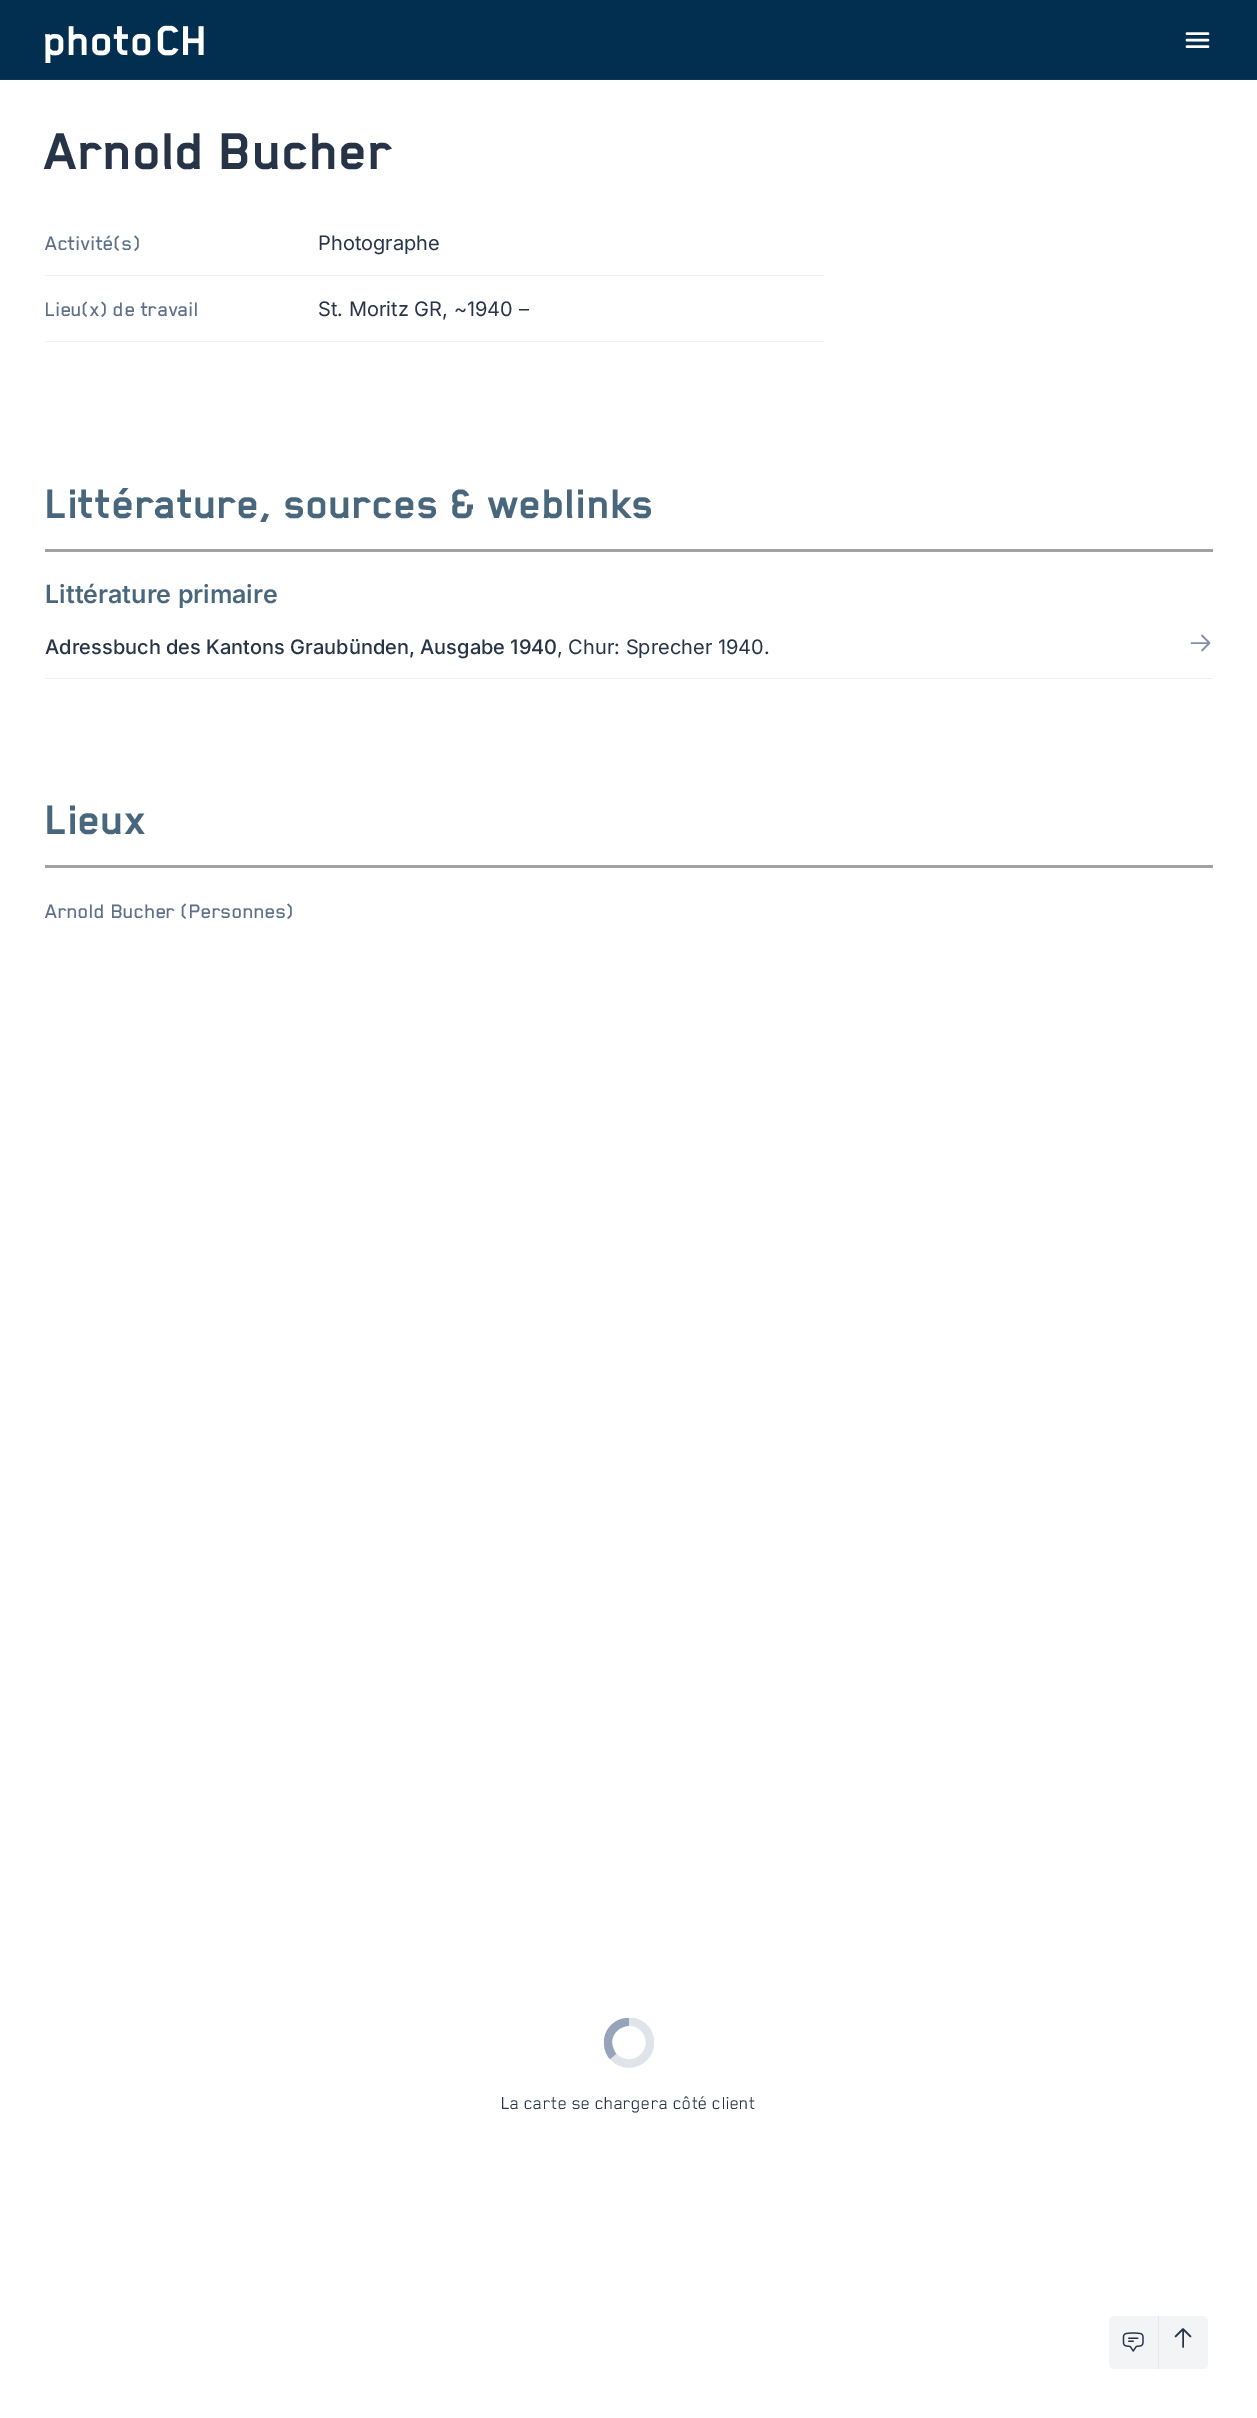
%!PS-Adobe-3.0
%%BoundingBox: 0 0 1257 2418
%%LanguageLevel: 3
%%Pages: 1
%%EndComments
%%BeginProlog
/setink { dup -16 bitshift 255 div exch dup -8 bitshift 255 and 255 div exch 255 and 255 div setrgbcolor } def
/usefont { [ exch dup neg 0 0 3 -1 roll 0 0 ] selectfont } def
/setalpha { dup .setfillconstantalpha .setstrokeconstantalpha } def
/disc { newpath 0 360 arc closepath } def
/rrect { 5 dict begin { /r /h /w /y /x } { exch def } forall
  x r add y moveto x w add y 2 copy h add r arct x w add y h add x 1 index r arct
  x y h add x y r arct x y 2 copy exch w add exch r arct closepath end } def
/drawimage { 5 dict begin { /h /w /y /x /name } { exch def } forall
  gsave x y translate w h scale
  w h 8 [w 0 0 h 0 0] name (r) file false 3 colorimage grestore end } def
%%EndProlog
%%BeginSetup
<< /PageSize [1257 2418] /PageUsesTransparency true >> setpagedevice
%%EndSetup
%%Page: 1 1
0 .pushpdf14devicefilter
0 2418 translate 1 -1 scale
4 setmiterlimit
16#FFFFFF setink
0 0 1257 2418 rectfill
16#022E4F setink
0 0 1257 79 rectfill
16#0F3858 setink
0 79 1257 1 rectfill
(img1.raw) 45 25 159 38 drawimage
16#FFFFFF setink
2.5 setlinewidth
1 setlinecap
1 setlinejoin
1187 33.5 moveto 1208 33.5 lineto 1187 40 moveto 1208 40 lineto 1187 46.5 moveto 1208 46.5 lineto stroke
/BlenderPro-Bold 60 usefont
16#273448 setink
45 169 moveto (Arnold Bucher) show
16#EEF2F6 setink
45 341 779 1 rectfill
/BlenderPro-Medium 22.5 usefont
16#5E6F8A setink
45 250 moveto (Activité\(s\)) show
/Inter-Regular 20 usefont
16#273448 setink
318 250 moveto (Photographe) show
16#EEF2F6 setink
45 275 779 1 rectfill
/BlenderPro-Medium 22.5 usefont
16#5E6F8A setink
45 316 moveto (Lieu\(x\) de travail) show
/Inter-Regular 20 usefont
16#273448 setink
318 316 moveto (St. Moritz GR, ~1940 –) show
/BlenderPro-Bold 47.5 usefont
16#49677C setink
45 518 moveto (Littérature, sources & weblinks) show
16#A1A1A1 setink
45 549 1168 3 rectfill
/Inter-SemiBold 25 usefont
16#49677C setink
45 603 moveto (Littérature primaire) show
16#EEF2F6 setink
45 678 1168 1 rectfill
/Inter-Medium 20 usefont
16#273448 setink
45 654 moveto (Adressbuch des Kantons Graubünden, Ausgabe 1940) show
/Inter-Regular 20 usefont
557 654 moveto (, Chur: Sprecher 1940.) show
16#7D8FAA setink
1.5 setlinewidth
1202 635.5 moveto 1209.5 643 lineto 1209.5 643 moveto 1202 650.5 lineto 1209.5 643 moveto 1191.5 643 lineto stroke
/BlenderPro-Bold 47.5 usefont
16#49677C setink
45 834 moveto (Lieux) show
16#A1A1A1 setink
45 865 1168 3 rectfill
/BlenderPro-Medium 22.5 usefont
16#5E6F8A setink
45 918 moveto (Arnold Bucher \(Personnes\)) show
gsave
604 2018 50 50 rectclip
16#DFE3EA setink
8.3 setlinewidth
0 setlinecap
0 setlinejoin
629 2042.5 21 disc stroke
grestore
0.75 setalpha
16#7D8FAA setink
612 2042 moveto 612 2033 620 2026 629 2026 curveto 629 2018 lineto 615 2018 604 2029 604 2042 curveto closepath 616 2054 moveto 614 2050 612 2047 612 2042 curveto 604 2042 lineto 604 2049 606 2055 610 2059 curveto closepath fill
/BlenderPro-Regular 20 usefont
1 setalpha
16#273448 setink
501 2109 moveto (La carte se chargera côté client) show
16#F3F4F6 setink
1109 2316 99 53 5 rrect fill
(img2.raw) 1122 2332 22 20 drawimage
16#E5E7EB setink
1158 2316 1 53 rectfill
16#273448 setink
1175.5 2336.5 moveto 1183 2329 lineto 1183 2329 moveto 1190.5 2336.5 lineto 1183 2329 moveto 1183 2347 lineto stroke
.poppdf14devicefilter showpage
%%EOF
